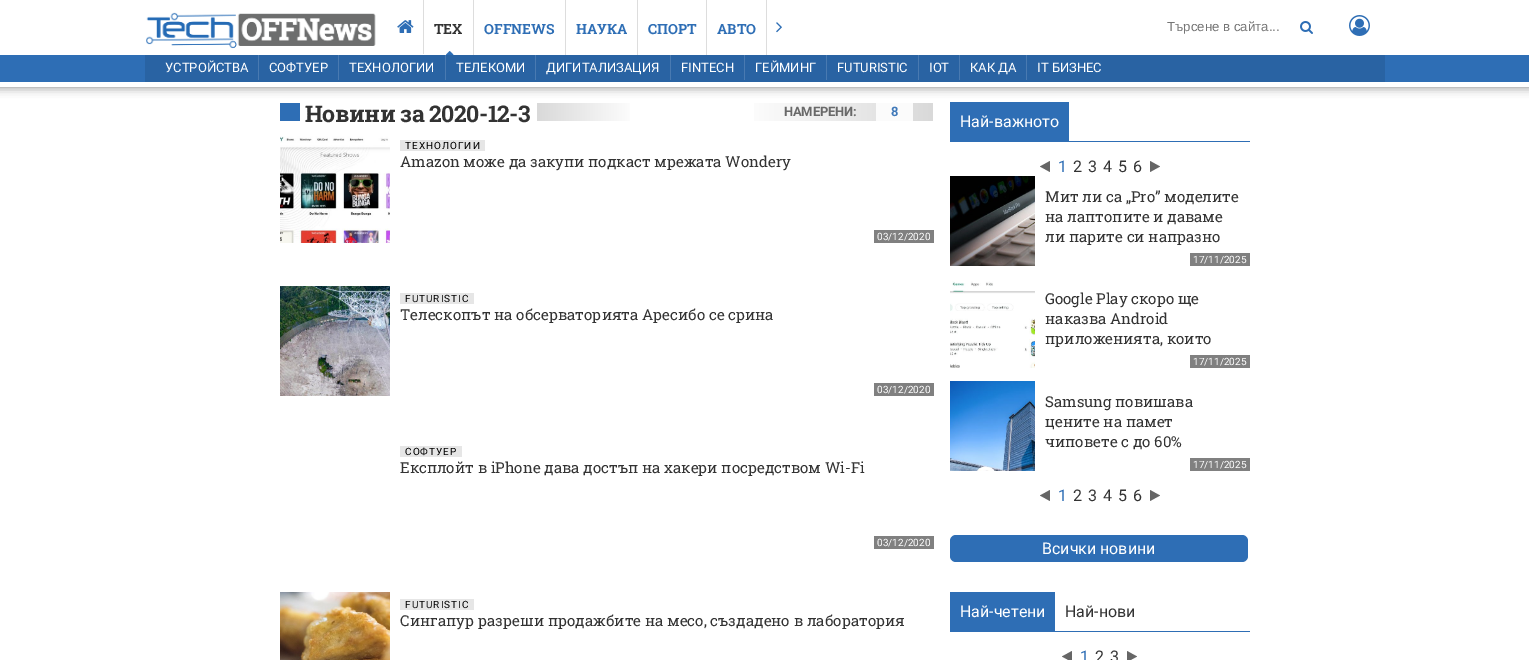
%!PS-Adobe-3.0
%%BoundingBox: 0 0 1529 660
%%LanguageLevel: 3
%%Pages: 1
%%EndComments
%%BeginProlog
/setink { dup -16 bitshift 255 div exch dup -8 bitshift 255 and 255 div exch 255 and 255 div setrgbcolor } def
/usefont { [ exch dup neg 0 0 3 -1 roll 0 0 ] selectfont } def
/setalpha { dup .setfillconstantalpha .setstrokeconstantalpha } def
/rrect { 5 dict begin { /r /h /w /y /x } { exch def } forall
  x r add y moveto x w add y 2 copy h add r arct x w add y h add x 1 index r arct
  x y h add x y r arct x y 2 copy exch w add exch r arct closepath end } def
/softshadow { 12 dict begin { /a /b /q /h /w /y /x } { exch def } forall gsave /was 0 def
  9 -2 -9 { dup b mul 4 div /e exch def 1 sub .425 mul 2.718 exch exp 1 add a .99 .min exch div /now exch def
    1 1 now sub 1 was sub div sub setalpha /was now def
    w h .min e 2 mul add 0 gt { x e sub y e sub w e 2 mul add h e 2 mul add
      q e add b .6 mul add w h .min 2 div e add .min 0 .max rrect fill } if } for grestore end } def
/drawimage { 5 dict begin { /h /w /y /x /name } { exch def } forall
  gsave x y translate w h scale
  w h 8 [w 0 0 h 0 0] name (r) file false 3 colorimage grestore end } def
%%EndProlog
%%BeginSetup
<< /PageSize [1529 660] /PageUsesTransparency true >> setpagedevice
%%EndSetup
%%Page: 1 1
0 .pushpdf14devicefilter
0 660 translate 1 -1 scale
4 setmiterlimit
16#FFFFFF setink
0 0 1529 660 rectfill
(img1.raw) 146 12 230 37 drawimage
16#2E6EB5 setink
950 102 119 39 rectfill
16#000000 setink
-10 67 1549 20 0 5 0.5 softshadow
16#DDDDDD setink
423 0 1 54 rectfill
(img2.raw) 397 20 17 13 drawimage
473 0 1 55 rectfill
/RobotoSlab-Bold 14 usefont
16#333333 setink
434 34 moveto (ТЕХ) show
(img3.raw) 446 51 8 4 drawimage
16#DDDDDD setink
565 0 1 55 rectfill
16#2E6EB5 setink
484 34 moveto (OFFNEWS) show
16#DDDDDD setink
637 0 1 55 rectfill
16#2E6EB5 setink
576 34 moveto (НАУКА) show
16#DDDDDD setink
706 0 1 55 rectfill
16#2E6EB5 setink
648 34 moveto (СПОРТ) show
16#DDDDDD setink
766 0 1 55 rectfill
16#2E6EB5 setink
717 34 moveto (АВТО) show
(img4.raw) 776 22 6 11 drawimage
/LiberationSans-Regular 13.25 usefont
16#757575 setink
1167 31 moveto (Търсене в сайта...) show
(img5.raw) 1300 21 13 13 drawimage
(img6.raw) 1349 15 21 21 drawimage
[
    [0 55 1529 27 16#2E6EB5]
    [0 82 1529 5 16#FFFFFF]
    [145 55 1240 27 16#2963A3]
    [258 55 1 25 16#497AB1]
] { aload pop setink rectfill } forall
/Roboto-Regular 13 usefont
16#FFFFFF setink
165 72 moveto (УСТРОЙСТВА) show
16#497AB1 setink
338 55 1 25 rectfill
16#FFFFFF setink
269 72 moveto (СОФТУЕР) show
16#497AB1 setink
445 55 1 25 rectfill
16#FFFFFF setink
349 72 moveto (ТЕХНОЛОГИИ) show
16#497AB1 setink
535 55 1 25 rectfill
16#FFFFFF setink
456 72 moveto (ТЕЛЕКОМИ) show
16#497AB1 setink
670 55 1 25 rectfill
16#FFFFFF setink
546 72 moveto (ДИГИТАЛИЗАЦИЯ) show
16#497AB1 setink
744 55 1 25 rectfill
16#FFFFFF setink
681 72 moveto (FINTECH) show
16#497AB1 setink
826 55 1 25 rectfill
16#FFFFFF setink
755 72 moveto (ГЕЙМИНГ) show
16#497AB1 setink
918 55 1 25 rectfill
16#FFFFFF setink
837 72 moveto (FUTURISTIC) show
16#497AB1 setink
959 55 1 25 rectfill
16#FFFFFF setink
929 72 moveto (IOT) show
16#497AB1 setink
1026 55 1 25 rectfill
16#FFFFFF setink
970 72 moveto (КАК ДА) show
1037 72 moveto (IT БИЗНЕС) show
16#2E6EB5 setink
280 103 20 18 rectfill
/RobotoSlab-Bold 23 usefont
16#333333 setink
305 122 moveto -0.5 0 (Новини за 2020-12-3) ashow
gsave 537 103 moveto 630 103 lineto 630 121 lineto 537 121 lineto closepath clip newpath
<< /ShadingType 2 /ColorSpace /DeviceRGB /Coords [537 112 637 112] /Extend [true true] /Function << /FunctionType 2 /Domain [0 1] /C0 [0.851 0.851 0.851] /C1 [1 1 1] /N 1 >> >> shfill grestore
gsave 754 103 moveto 933 103 lineto 933 121 lineto 754 121 lineto closepath clip newpath
<< /ShadingType 2 /ColorSpace /DeviceRGB /Coords [933 112 741 112] /Extend [true true] /Function << /FunctionType 2 /Domain [0 1] /C0 [0.851 0.851 0.851] /C1 [1 1 1] /N 1 >> >> shfill grestore
gsave 876 103 moveto 913 103 lineto 913 121 lineto 876 121 lineto closepath clip newpath
<< /ShadingType 2 /ColorSpace /DeviceRGB /Coords [933 112 741 112] /Extend [true true] /Function << /FunctionType 2 /Domain [0 1] /C0 [0.984 0.984 0.984] /C1 [1 1 1] /N 1 >> >> shfill grestore
/Roboto-Bold 13 usefont
16#696969 setink
784 116 moveto -0.25 0 (НАМЕРЕНИ:) ashow
16#4079B9 setink
891 116 moveto -0.25 0 (8) ashow
(img7.raw) 280 136 110 107 drawimage
16#E6E6E6 setink
400 140 85 11 rectfill
/Roboto-Regular 10 usefont
16#000000 setink
405 149 moveto 1 0 (ТЕХНОЛОГИИ) ashow
/RobotoSlab-Regular 15 usefont
16#333333 setink
400 167 moveto (Amazon може да закупи подкаст мрежата Wondery) show
16#808080 setink
874 230 60 13 rectfill
/Roboto-Regular 10 usefont
16#FFFFFF setink
877 240 moveto (03/12/2020) show
(img8.raw) 280 286 110 110 drawimage
16#E6E6E6 setink
400 293 74 11 rectfill
16#000000 setink
405 302 moveto 1 0 (FUTURISTIC) ashow
/RobotoSlab-Regular 15 usefont
16#333333 setink
400 320 moveto (Телескопът на обсерваторията Аресибо се срина) show
16#808080 setink
874 383 60 13 rectfill
/Roboto-Regular 10 usefont
16#FFFFFF setink
877 393 moveto (03/12/2020) show
16#E6E6E6 setink
400 446 62 11 rectfill
16#000000 setink
405 455 moveto 1 0 (СОФТУЕР) ashow
/RobotoSlab-Regular 15 usefont
16#333333 setink
400 473 moveto (Експлойт в iPhone дава достъп на хакери посредством Wi-Fi) show
16#808080 setink
874 536 60 13 rectfill
/Roboto-Regular 10 usefont
16#FFFFFF setink
877 546 moveto (03/12/2020) show
(img9.raw) 280 592 110 68 drawimage
16#E6E6E6 setink
400 599 74 11 rectfill
16#000000 setink
405 608 moveto 1 0 (FUTURISTIC) ashow
/RobotoSlab-Regular 15 usefont
16#333333 setink
400 626 moveto (Сингапур разреши продажбите на месо, създадено в лаборатория) show
16#2E6EB5 setink
950 141 300 1 rectfill
/Roboto-Regular 16 usefont
16#FFFFFF setink
960 127 moveto (Най-важното) show
16#666666 setink
1050 166.5 moveto 1050 172 lineto 1040 166.5 lineto 1050 161 lineto closepath fill
16#2E6EB5 setink
1058 172 moveto (1) show
16#333333 setink
[
    [(2) 1073 172]
    [(3) 1088 172]
    [(4) 1103 172]
    [(5) 1118 172]
    [(6) 1133 172]
] { aload pop moveto show } forall
16#666666 setink
1150 166.5 moveto 1150 161 lineto 1160 166.5 lineto 1150 172 lineto closepath fill
(img10.raw) 950 176 85 90 drawimage
/RobotoSlab-Regular 15 usefont
16#333333 setink
[
    [(Мит ли са „Pro” моделите) 1045 202]
    [(на лаптопите и даваме) 1045 222]
    [(ли парите си напразно) 1045 242]
] { aload pop moveto show } forall
16#808080 setink
1190 253 60 13 rectfill
/Roboto-Regular 10 usefont
16#FFFFFF setink
1193 263 moveto (17/11/2025) show
(img11.raw) 950 281 85 87 drawimage
/RobotoSlab-Regular 15 usefont
16#333333 setink
[
    [(Google Play скоро ще) 1045 304]
    [(наказва Android) 1045 324]
    [(приложенията, които) 1045 344]
] { aload pop moveto show } forall
16#808080 setink
1190 355 60 13 rectfill
/Roboto-Regular 10 usefont
16#FFFFFF setink
1193 365 moveto (17/11/2025) show
(img12.raw) 950 381 85 90 drawimage
/RobotoSlab-Regular 15 usefont
16#333333 setink
[
    [(Samsung повишава) 1045 407]
    [(цените на памет) 1045 427]
    [(чиповете с до 60%) 1045 447]
] { aload pop moveto show } forall
16#808080 setink
1190 458 60 13 rectfill
/Roboto-Regular 10 usefont
16#FFFFFF setink
1193 468 moveto (17/11/2025) show
16#666666 setink
1050 495.5 moveto 1050 501 lineto 1040 495.5 lineto 1050 490 lineto closepath fill
/Roboto-Regular 16 usefont
16#2E6EB5 setink
1058 501 moveto (1) show
16#333333 setink
[
    [(2) 1073 501]
    [(3) 1088 501]
    [(4) 1103 501]
    [(5) 1118 501]
    [(6) 1133 501]
] { aload pop moveto show } forall
16#666666 setink
1150 495.5 moveto 1150 490 lineto 1160 495.5 lineto 1150 501 lineto closepath fill
16#2E6EB5 setink
950 535 298 27 6 rrect fill
16#FFFFFF setink
1042 554 moveto (Всички новини) show
16#2E6EB5 setink
950 631 300 1 rectfill
950 592 105 39 rectfill
16#FFFFFF setink
960 617 moveto (Най-четени) show
16#333333 setink
1065 617 moveto (Най-нови) show
16#666666 setink
1072 656.5 moveto 1072 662 lineto 1062 656.5 lineto 1072 651 lineto closepath fill
16#2E6EB5 setink
1080 662 moveto (1) show
16#333333 setink
1095 662 moveto (2) show
1110 662 moveto (3) show
16#666666 setink
1127 656.5 moveto 1127 651 lineto 1137 656.5 lineto 1127 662 lineto closepath fill
.poppdf14devicefilter showpage
%%EOF
